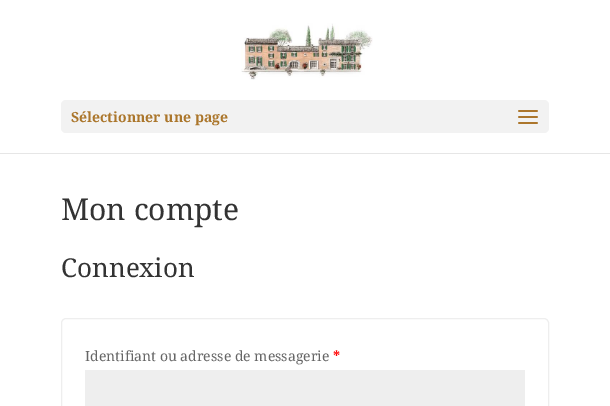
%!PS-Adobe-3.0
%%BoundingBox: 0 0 610 406
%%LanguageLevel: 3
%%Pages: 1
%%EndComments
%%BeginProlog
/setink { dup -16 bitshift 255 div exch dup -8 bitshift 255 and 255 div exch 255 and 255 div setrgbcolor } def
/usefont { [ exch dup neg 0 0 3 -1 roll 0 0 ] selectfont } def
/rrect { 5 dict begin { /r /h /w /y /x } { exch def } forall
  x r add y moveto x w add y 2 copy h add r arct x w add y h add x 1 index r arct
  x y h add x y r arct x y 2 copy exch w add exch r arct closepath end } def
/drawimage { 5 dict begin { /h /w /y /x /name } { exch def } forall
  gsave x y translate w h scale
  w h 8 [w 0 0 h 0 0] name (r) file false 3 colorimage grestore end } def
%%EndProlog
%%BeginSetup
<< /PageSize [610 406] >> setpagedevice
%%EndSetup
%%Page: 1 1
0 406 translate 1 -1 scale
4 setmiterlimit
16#FFFFFF setink
0 0 610 406 rectfill
16#E6E6E6 setink
0 153 610 1 rectfill
(img1.raw) 241 23 132 57 drawimage
16#F2F2F2 setink
61 100 488 33 5 rrect fill
/NotoSerif-Bold 14 usefont
16#AB762B setink
71 122 moveto (Sélectionner une page) show
(img2.raw) 518 110 20 14 drawimage
/NotoSerif-Regular 30 usefont
16#333333 setink
61 220 moveto (Mon compte) show
/NotoSerif-Regular 26 usefont
61 277 moveto (Connexion) show
16#EEEEEE setink
61.5 318.5 487 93 4.5 rrect stroke
/NotoSerif-Regular 14 usefont
16#666666 setink
85 361 moveto (Identifiant ou adresse de messagerie) show
/NotoSerif-Bold 14 usefont
16#FF0000 setink
333 361 moveto (*) show
16#EEEEEE setink
85 370 440 36 rectfill
showpage
%%EOF
